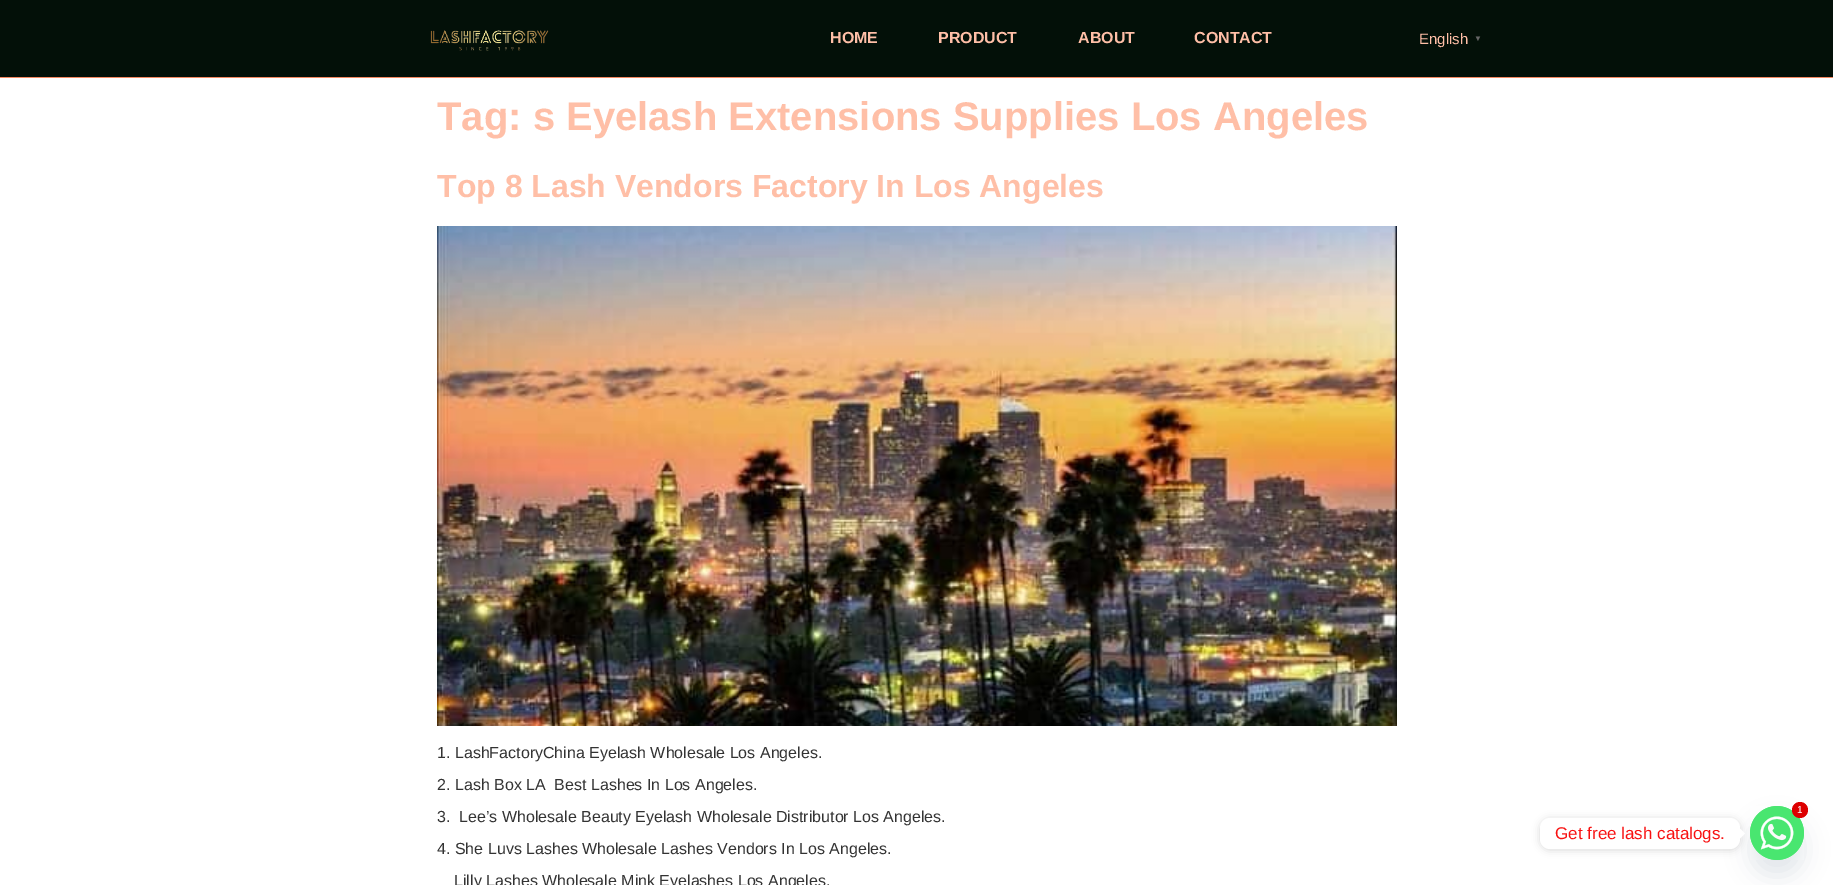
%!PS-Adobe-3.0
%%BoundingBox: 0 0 1833 885
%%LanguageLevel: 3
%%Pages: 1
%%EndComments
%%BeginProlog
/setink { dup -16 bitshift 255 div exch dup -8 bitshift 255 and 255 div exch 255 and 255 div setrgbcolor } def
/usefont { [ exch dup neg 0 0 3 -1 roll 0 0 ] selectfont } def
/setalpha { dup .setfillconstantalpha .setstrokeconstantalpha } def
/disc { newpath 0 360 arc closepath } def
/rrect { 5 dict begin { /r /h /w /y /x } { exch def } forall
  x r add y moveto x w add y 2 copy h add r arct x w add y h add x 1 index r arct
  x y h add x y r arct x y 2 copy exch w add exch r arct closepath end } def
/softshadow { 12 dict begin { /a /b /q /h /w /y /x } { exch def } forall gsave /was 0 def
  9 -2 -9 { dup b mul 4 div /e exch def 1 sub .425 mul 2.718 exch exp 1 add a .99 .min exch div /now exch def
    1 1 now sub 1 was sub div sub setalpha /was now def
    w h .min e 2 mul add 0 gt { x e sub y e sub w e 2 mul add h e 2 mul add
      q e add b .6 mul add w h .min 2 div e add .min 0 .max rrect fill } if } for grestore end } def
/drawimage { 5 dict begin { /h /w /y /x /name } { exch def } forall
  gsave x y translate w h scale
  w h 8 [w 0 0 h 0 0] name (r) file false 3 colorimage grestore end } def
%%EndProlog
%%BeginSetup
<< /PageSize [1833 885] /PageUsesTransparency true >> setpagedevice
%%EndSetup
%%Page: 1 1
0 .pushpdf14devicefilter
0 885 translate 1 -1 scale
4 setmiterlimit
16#FFFFFF setink
0 0 1833 885 rectfill
16#031008 setink
0 0 1833 77 rectfill
16#F38860 setink
0 77 1833 1 rectfill
(img1.raw) 430 30 119 21 drawimage
/LiberationSans-Bold 16 usefont
16#FFBFA7 setink
[
    [(HOME) 830 43]
    [(PRODUCT) 938 43]
    [(ABOUT) 1078 43]
    [(CONTACT) 1194 43]
] { aload pop moveto show } forall
/LiberationSans-Regular 15 usefont
1419 44 moveto (English) show
/LiberationSans-Bold 8 usefont
16#666666 setink
1474 41 moveto (▼) show
/LiberationSans-Bold 40 usefont
16#FFBFA7 setink
437 130 moveto (Tag: s Eyelash Extensions Supplies Los Angeles) show
/LiberationSans-Bold 32 usefont
437 197 moveto (Top 8 Lash Vendors Factory In Los Angeles) show
(img2.raw) 437 226 960 500 drawimage
/LiberationSans-Regular 16 usefont
16#333333 setink
[
    [(1. LashFactoryChina Eyelash Wholesale Los Angeles.) 437 758]
    [(2. Lash Box LA  Best Lashes In Los Angeles.) 437 790]
    [(3.  Lee’s Wholesale Beauty Eyelash Wholesale Distributor Los Angeles.) 437 822]
    [(4. She Luvs Lashes Wholesale Lashes Vendors In Los Angeles.) 437 854]
    [(Lilly Lashes Wholesale Mink Eyelashes Los Angeles.) 454 886]
] { aload pop moveto show } forall
16#49687E setink
1750 822 54 54 27 12 0.16 softshadow
(img3.raw) 1750 806 54 54 drawimage
16#DD0000 setink
1800 810 8 disc fill
/LiberationSans-Regular 10 usefont
16#FFFFFF setink
1797 813 moveto (1) show
16#000000 setink
1540 819 200 31 10 4 0.15 softshadow
16#FFFFFF setink
1540 818 200 31 10 rrect fill
/LiberationSans-Regular 17 usefont
16#F81111 setink
1555 839 moveto (Get free lash catalogs.) show
16#FFFFFF setink
1740 838.5 moveto 1740 828.5 lineto 1745 833.5 lineto closepath fill
.poppdf14devicefilter showpage
%%EOF
